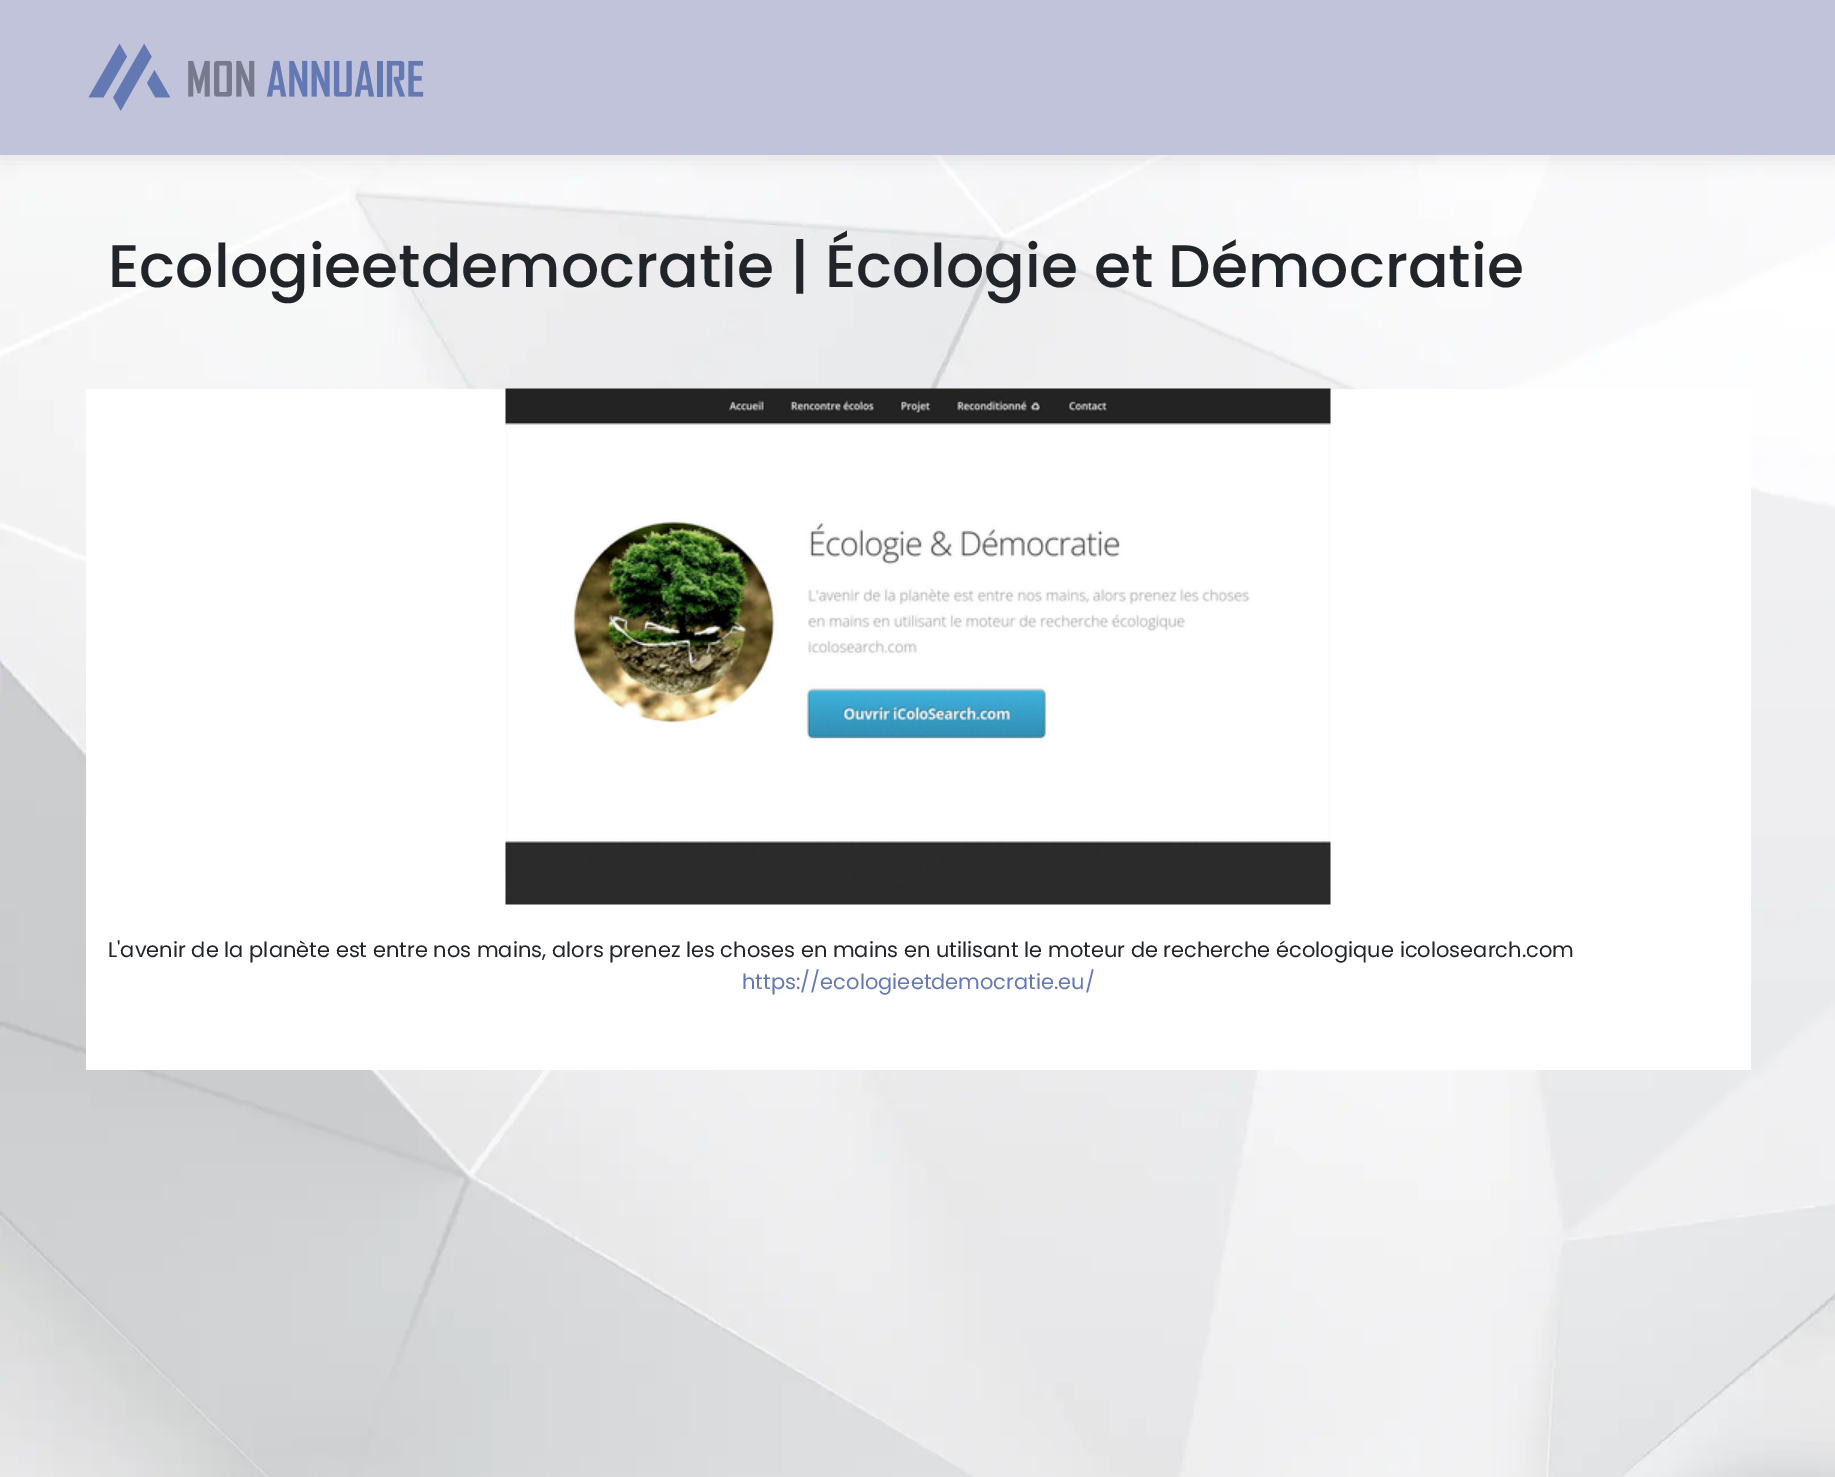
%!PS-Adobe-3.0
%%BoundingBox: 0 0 1835 1477
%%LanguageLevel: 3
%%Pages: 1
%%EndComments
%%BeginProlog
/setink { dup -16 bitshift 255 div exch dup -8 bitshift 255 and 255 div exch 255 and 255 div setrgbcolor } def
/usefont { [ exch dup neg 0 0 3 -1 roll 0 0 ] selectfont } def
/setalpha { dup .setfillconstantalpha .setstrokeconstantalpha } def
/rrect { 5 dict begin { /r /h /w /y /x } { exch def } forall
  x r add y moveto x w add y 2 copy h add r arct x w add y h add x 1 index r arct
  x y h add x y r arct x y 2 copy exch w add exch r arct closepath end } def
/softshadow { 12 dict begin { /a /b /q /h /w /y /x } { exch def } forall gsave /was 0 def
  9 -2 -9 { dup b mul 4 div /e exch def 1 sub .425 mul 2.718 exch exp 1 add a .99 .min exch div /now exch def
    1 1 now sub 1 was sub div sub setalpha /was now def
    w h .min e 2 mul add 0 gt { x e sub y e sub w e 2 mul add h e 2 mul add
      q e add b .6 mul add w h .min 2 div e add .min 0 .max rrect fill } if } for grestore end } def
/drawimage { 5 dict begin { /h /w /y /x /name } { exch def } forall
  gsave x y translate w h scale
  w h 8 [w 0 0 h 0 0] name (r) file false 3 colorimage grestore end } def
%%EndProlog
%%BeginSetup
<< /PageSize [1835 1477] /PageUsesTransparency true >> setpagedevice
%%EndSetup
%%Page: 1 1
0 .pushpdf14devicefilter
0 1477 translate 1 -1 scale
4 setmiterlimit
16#FFFFFF setink
0 0 1835 1477 rectfill
(img1.raw) 0 155 1835 1322 drawimage
16#000000 setink
0 3 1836 155 0 10 0.1 softshadow
16#C0C3D9 setink
0 0 1835 155 rectfill
(img2.raw) 88 43 336 68 drawimage
/Poppins-Medium 60 usefont
16#212529 setink
108 287 moveto (Ecologieetdemocratie | Écologie et Démocratie) show
16#FFFFFF setink
86 389 1665 681 rectfill
(img3.raw) 505 388 826 517 drawimage
/Poppins-Regular 21 usefont
16#212529 setink
108 957 moveto (L'avenir de la planète est entre nos mains, alors prenez les choses en mains en utilisant le moteur de recherche écologique icolosearch.com) show
16#6478B3 setink
742 989 moveto (https://ecologieetdemocratie.eu/) show
.poppdf14devicefilter showpage
%%EOF
